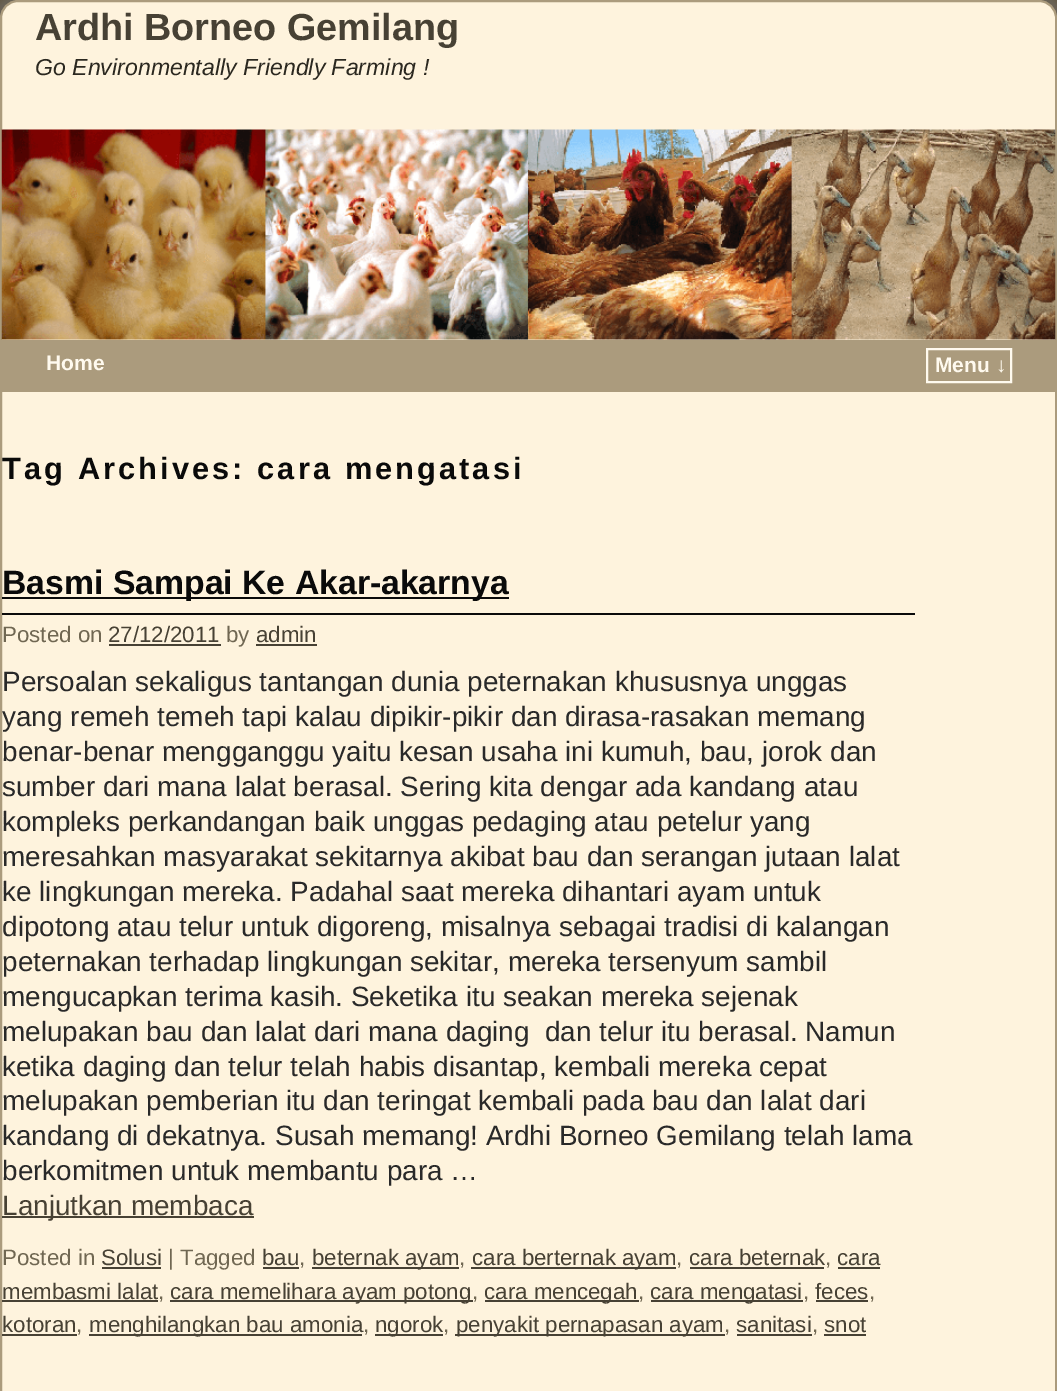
%!PS-Adobe-3.0
%%BoundingBox: 0 0 1057 1391
%%LanguageLevel: 3
%%Pages: 1
%%EndComments
%%BeginProlog
/setink { dup -16 bitshift 255 div exch dup -8 bitshift 255 and 255 div exch 255 and 255 div setrgbcolor } def
/usefont { [ exch dup neg 0 0 3 -1 roll 0 0 ] selectfont } def
/setalpha { dup .setfillconstantalpha .setstrokeconstantalpha } def
/rrect { 5 dict begin { /r /h /w /y /x } { exch def } forall
  x r add y moveto x w add y 2 copy h add r arct x w add y h add x 1 index r arct
  x y h add x y r arct x y 2 copy exch w add exch r arct closepath end } def
/softshadow { 12 dict begin { /a /b /q /h /w /y /x } { exch def } forall gsave /was 0 def
  9 -2 -9 { dup b mul 4 div /e exch def 1 sub .425 mul 2.718 exch exp 1 add a .99 .min exch div /now exch def
    1 1 now sub 1 was sub div sub setalpha /was now def
    w h .min e 2 mul add 0 gt { x e sub y e sub w e 2 mul add h e 2 mul add
      q e add b .6 mul add w h .min 2 div e add .min 0 .max rrect fill } if } for grestore end } def
/drawimage { 5 dict begin { /h /w /y /x /name } { exch def } forall
  gsave x y translate w h scale
  w h 8 [w 0 0 h 0 0] name (r) file false 3 colorimage grestore end } def
%%EndProlog
%%BeginSetup
<< /PageSize [1057 1391] /PageUsesTransparency true >> setpagedevice
%%EndSetup
%%Page: 1 1
0 .pushpdf14devicefilter
0 1391 translate 1 -1 scale
4 setmiterlimit
16#C7B491 setink
0 0 1057 1391 rectfill
(img1.raw) 0 0 1057 18 drawimage
16#7F7F7F setink
-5 -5 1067 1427 23 2.5 0.25 softshadow
16#FEF3DD setink
1 1 1055 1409 17 rrect gsave fill grestore
16#AB9B7D setink
2 setlinewidth
stroke
/LiberationSans-Bold 37.75 usefont
16#474134 setink
35 40 moveto (Ardhi Borneo Gemilang) show
/LiberationSans-Italic 23.1 usefont
16#2B2820 setink
35 75 moveto (Go Environmentally Friendly Farming !) show
(img2.raw) 1 129 1055 211 drawimage
16#AB9B7D setink
2 340 1053 52 rectfill
/LiberationSans-Bold 21 usefont
16#FFFAEF setink
46 370 moveto (Home) show
927 349 84 33 rectstroke
935 372 moveto (Menu ↓) show
/LiberationSans-Bold 30.75 usefont
16#0A0A0A setink
2 479 moveto 3.1 0 (Tag Archives: cara mengatasi) ashow
2 613 913 2 rectfill
2 597 507 2 rectfill
/LiberationSans-Bold 33.75 usefont
2 594 moveto (Basmi Sampai Ke Akar-akarnya) show
/LiberationSans-Regular 22.3 usefont
16#706752 setink
2 642 moveto (Posted on) show
16#474134 setink
108 642 moveto (27/12/2011) show
109 644 112 2 rectfill
16#706752 setink
226 642 moveto (by) show
16#474134 setink
256 642 moveto (admin) show
256 644 61 2 rectfill
/LiberationSans-Regular 27.9 usefont
16#292929 setink
[
    [(Persoalan sekaligus tantangan dunia peternakan khususnya unggas) 2 691]
    [(yang remeh temeh tapi kalau dipikir-pikir dan dirasa-rasakan memang) 2 726]
    [(benar-benar mengganggu yaitu kesan usaha ini kumuh, bau, jorok dan) 2 761]
    [(sumber dari mana lalat berasal. Sering kita dengar ada kandang atau) 2 796]
    [(kompleks perkandangan baik unggas pedaging atau petelur yang) 2 831]
    [(meresahkan masyarakat sekitarnya akibat bau dan serangan jutaan lalat) 2 866]
    [(ke lingkungan mereka. Padahal saat mereka dihantari ayam untuk) 2 901]
    [(dipotong atau telur untuk digoreng, misalnya sebagai tradisi di kalangan) 2 936]
    [(peternakan terhadap lingkungan sekitar, mereka tersenyum sambil) 2 971]
    [(mengucapkan terima kasih. Seketika itu seakan mereka sejenak) 2 1006]
    [(melupakan bau dan lalat dari mana daging  dan telur itu berasal. Namun) 2 1041]
    [(ketika daging dan telur telah habis disantap, kembali mereka cepat) 2 1076]
    [(melupakan pemberian itu dan teringat kembali pada bau dan lalat dari) 2 1110]
    [(kandang di dekatnya. Susah memang! Ardhi Borneo Gemilang telah lama) 2 1145]
    [(berkomitmen untuk membantu para …) 2 1180]
] { aload pop moveto show } forall
16#474134 setink
2 1216 252 2 rectfill
2 1215 moveto (Lanjutkan membaca) show
/LiberationSans-Regular 22.3 usefont
16#706752 setink
2 1265 moveto (Posted in) show
16#474134 setink
101 1265 moveto (Solusi) show
102 1267 59 2 rectfill
16#706752 setink
168 1265 moveto (| Tagged) show
16#474134 setink
262 1265 moveto (bau) show
16#706752 setink
299 1265 moveto (,) show
16#474134 setink
263 1267 36 2 rectfill
312 1267 147 2 rectfill
312 1265 moveto (beternak ayam) show
16#706752 setink
459 1265 moveto (,) show
16#474134 setink
471 1267 205 2 rectfill
472 1265 moveto (cara berternak ayam) show
16#706752 setink
676 1265 moveto (,) show
16#474134 setink
689 1265 moveto (cara beternak) show
16#706752 setink
825 1265 moveto (,) show
16#474134 setink
690 1267 134 2 rectfill
838 1267 42 2 rectfill
837 1265 moveto (cara) show
2 1299 moveto (membasmi lalat) show
16#706752 setink
158 1299 moveto (,) show
16#474134 setink
2 1300 156 2 rectfill
170 1300 303 2 rectfill
170 1299 moveto (cara memelihara ayam potong) show
16#706752 setink
472 1299 moveto (,) show
16#474134 setink
485 1300 154 2 rectfill
484 1299 moveto (cara mencegah) show
16#706752 setink
638 1299 moveto (,) show
16#474134 setink
651 1300 152 2 rectfill
650 1299 moveto (cara mengatasi) show
16#706752 setink
803 1299 moveto (,) show
16#474134 setink
815 1299 moveto (feces) show
16#706752 setink
869 1299 moveto (,) show
16#474134 setink
816 1300 52 2 rectfill
2 1332 moveto (kotoran) show
16#706752 setink
76 1332 moveto (,) show
16#474134 setink
2 1334 75 2 rectfill
89 1334 273 2 rectfill
89 1332 moveto (menghilangkan bau amonia) show
16#706752 setink
363 1332 moveto (,) show
16#474134 setink
375 1334 68 2 rectfill
375 1332 moveto (ngorok) show
16#706752 setink
443 1332 moveto (,) show
16#474134 setink
455 1334 270 2 rectfill
456 1332 moveto (penyakit pernapasan ayam) show
16#706752 setink
724 1332 moveto (,) show
16#474134 setink
736 1332 moveto (sanitasi) show
16#706752 setink
812 1332 moveto (,) show
16#474134 setink
737 1334 75 2 rectfill
824 1334 42 2 rectfill
824 1332 moveto (snot) show
.poppdf14devicefilter showpage
%%EOF
